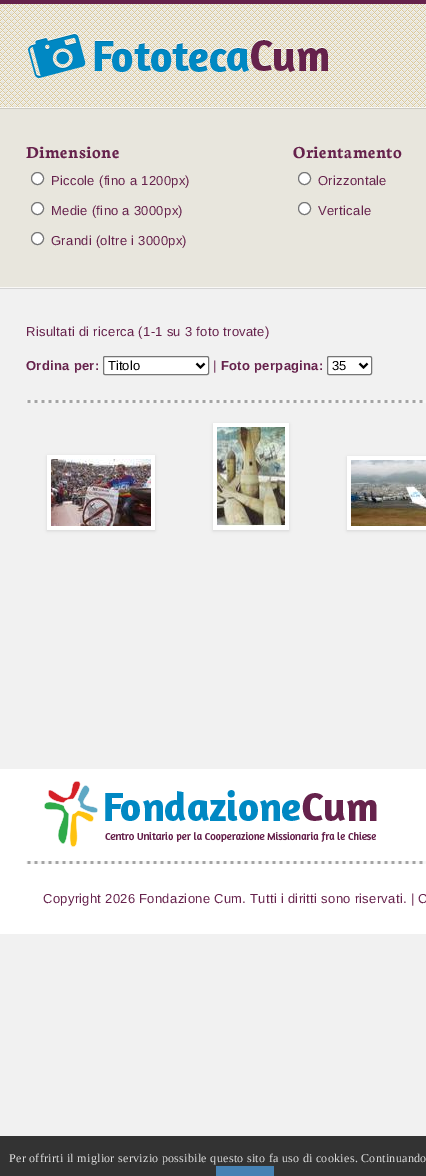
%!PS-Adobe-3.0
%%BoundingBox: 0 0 426 1176
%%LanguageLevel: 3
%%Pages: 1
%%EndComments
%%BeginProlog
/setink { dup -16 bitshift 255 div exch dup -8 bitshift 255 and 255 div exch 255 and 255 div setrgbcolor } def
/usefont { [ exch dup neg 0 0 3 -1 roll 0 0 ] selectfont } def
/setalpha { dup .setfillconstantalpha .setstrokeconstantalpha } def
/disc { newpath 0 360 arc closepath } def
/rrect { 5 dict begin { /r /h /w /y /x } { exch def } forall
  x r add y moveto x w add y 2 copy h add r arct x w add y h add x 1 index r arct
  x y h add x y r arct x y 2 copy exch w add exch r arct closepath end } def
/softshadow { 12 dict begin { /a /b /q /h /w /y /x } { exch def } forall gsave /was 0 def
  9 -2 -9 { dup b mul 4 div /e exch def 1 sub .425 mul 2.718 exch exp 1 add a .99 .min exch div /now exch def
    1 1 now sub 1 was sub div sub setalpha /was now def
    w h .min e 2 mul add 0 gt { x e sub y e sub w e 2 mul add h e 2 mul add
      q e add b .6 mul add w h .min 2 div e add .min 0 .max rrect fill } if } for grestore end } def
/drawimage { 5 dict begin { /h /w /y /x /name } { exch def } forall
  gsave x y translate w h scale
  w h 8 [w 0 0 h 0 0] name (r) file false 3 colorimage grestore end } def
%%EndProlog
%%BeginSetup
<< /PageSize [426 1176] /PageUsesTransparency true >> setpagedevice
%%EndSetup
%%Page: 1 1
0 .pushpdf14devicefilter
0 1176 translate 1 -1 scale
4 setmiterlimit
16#F1F1F1 setink
0 0 426 1176 rectfill
(img1.raw) 0 0 426 109 drawimage
(img2.raw) 28 33 300 45 drawimage
16#E8E6DD setink
0 109 426 178 rectfill
(img3.raw) 0 287 426 2 drawimage
/Neuton-Bold 18 usefont
16#66224C setink
26 158 moveto 0.3 0 (Dimensione) ashow
293 158 moveto 0.3 0 (Orientamento) ashow
16#FFFFFF setink
37.5 178.5 6 disc gsave fill grestore
16#767676 setink
stroke
/Arimo-Regular 13 usefont
16#66224C setink
51 185 moveto 0.3 0 (Piccole \(fino a 1200px\)) ashow
16#FFFFFF setink
304.5 178.5 6 disc gsave fill grestore
16#767676 setink
stroke
16#66224C setink
318 185 moveto 0.3 0 (Orizzontale) ashow
16#FFFFFF setink
37.5 208.5 6 disc gsave fill grestore
16#767676 setink
stroke
16#66224C setink
51 215 moveto 0.3 0 (Medie \(fino a 3000px\)) ashow
16#FFFFFF setink
304.5 208.5 6 disc gsave fill grestore
16#767676 setink
stroke
16#66224C setink
318 215 moveto 0.3 0 (Verticale) ashow
16#FFFFFF setink
37.5 238.5 6 disc gsave fill grestore
16#767676 setink
stroke
16#66224C setink
51 245 moveto 0.3 0 (Grandi \(oltre i 3000px\)) ashow
26 336 moveto 0.3 0 (Risultati di ricerca \(1-1 su 3 foto trovate\)) ashow
/Arimo-Bold 13 usefont
26 370 moveto 0.3 0 (Ordina per:) ashow
16#FFFFFF setink
103.5 356.5 105 18 1.5 rrect gsave fill grestore
16#767676 setink
stroke
16#000000 setink
2 setlinewidth
196.5 363.5 moveto 200.5 367.5 lineto 204.5 363.5 lineto stroke
/LiberationSans-Regular 13 usefont
108 370 moveto (Titolo) show
/Arimo-Regular 13 usefont
16#66224C setink
213 370 moveto 0.3 0 (|) ashow
/Arimo-Bold 13 usefont
221 370 moveto 0.3 0 (Foto perpagina:) ashow
16#FFFFFF setink
327.5 356.5 44 18 1.5 rrect gsave fill grestore
16#767676 setink
1 setlinewidth
stroke
16#000000 setink
2 setlinewidth
359.5 363.5 moveto 363.5 367.5 lineto 367.5 363.5 lineto stroke
/LiberationSans-Regular 13 usefont
332 370 moveto (35) show
(img4.raw) 26 400 400 3 drawimage
47 456 108 75 0 1.5 0.1 softshadow
16#FFFFFF setink
47 455 108 75 rectfill
(img5.raw) 51 459 100 67 drawimage
16#000000 setink
213 424 76 107 0 1.5 0.1 softshadow
16#FFFFFF setink
213 423 76 107 rectfill
(img6.raw) 217 427 68 99 drawimage
16#000000 setink
347 457 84 74 0 1.5 0.1 softshadow
16#FFFFFF setink
347 456 79 74 rectfill
(img7.raw) 351 460 75 66 drawimage
0 769 426 165 rectfill
(img8.raw) 44 781 333 66 drawimage
(img4.raw) 26 861 400 3 drawimage
/Arimo-Regular 13 usefont
16#66224C setink
43 903 moveto 0.3 0 (Copyright 2026 Fondazione Cum. Tutti i diritti sono riservati. | C) ashow
16#333333 setink
0 1136 426 40 rectfill
/LiberationSerif-Regular 12 usefont
16#DDDDDD setink
9 1162 moveto 0.3 0 (Per offrirti il miglior servizio possibile questo sito fa uso di cookies. Continuando) ashow
16#4682B4 setink
216 1166 58 10 rectfill
.poppdf14devicefilter showpage
%%EOF
